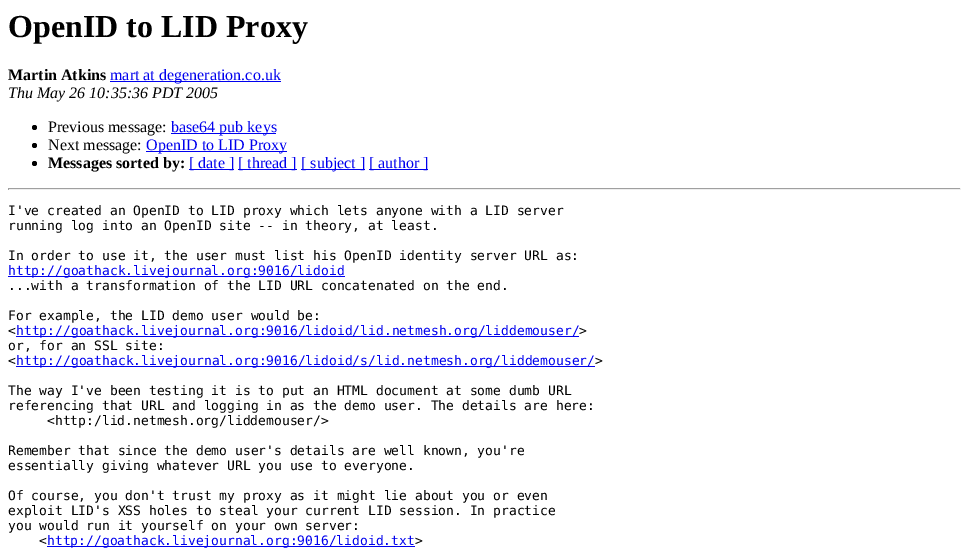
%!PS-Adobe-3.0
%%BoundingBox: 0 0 969 560
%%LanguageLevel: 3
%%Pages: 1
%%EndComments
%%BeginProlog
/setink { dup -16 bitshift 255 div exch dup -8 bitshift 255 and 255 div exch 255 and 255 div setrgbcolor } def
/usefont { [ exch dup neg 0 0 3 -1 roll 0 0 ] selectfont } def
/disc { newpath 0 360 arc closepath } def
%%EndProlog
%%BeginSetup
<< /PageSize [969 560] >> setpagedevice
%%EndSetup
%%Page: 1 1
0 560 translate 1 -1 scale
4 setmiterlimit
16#FFFFFF setink
0 0 969 560 rectfill
/LiberationSerif-Bold 32 usefont
16#000000 setink
8 37 moveto (OpenID to LID Proxy) show
/LiberationSerif-Bold 16 usefont
8 80 moveto (Martin Atkins) show
16#0000EE setink
110 81 171 1 rectfill
/LiberationSerif-Regular 16 usefont
110 80 moveto (mart at degeneration.co.uk) show
/LiberationSerif-Italic 16 usefont
16#000000 setink
8 98 moveto (Thu May 26 10:35:36 PDT 2005) show
34.5 127.5 2.5 disc fill
/LiberationSerif-Regular 16 usefont
48 132 moveto (Previous message:) show
16#0000EE setink
171 133 105 1 rectfill
171 132 moveto (base64 pub keys) show
16#000000 setink
34.5 145.5 2.5 disc fill
48 150 moveto (Next message:) show
16#0000EE setink
146 151 141 1 rectfill
146 150 moveto (OpenID to LID Proxy) show
16#000000 setink
34.5 163.5 2.5 disc fill
/LiberationSerif-Bold 16 usefont
48 168 moveto (Messages sorted by:) show
16#0000EE setink
189 169 45 1 rectfill
/LiberationSerif-Regular 16 usefont
189 168 moveto ([ date ]) show
238 169 59 1 rectfill
238 168 moveto ([ thread ]) show
301 169 64 1 rectfill
301 168 moveto ([ subject ]) show
369 169 59 1 rectfill
369 168 moveto ([ author ]) show
[
    [8 188 953 1 16#9F9F9F]
    [960 188 1 2 16#EEEEEE]
    [8 189 953 1 16#EEEEEE]
    [8 188 1 2 16#9F9F9F]
] { aload pop setink rectfill } forall
/DejaVuSansMono-Regular 13 usefont
16#000000 setink
[
    [(I've created an OpenID to LID proxy which lets anyone with a LID server) 8 215]
    [(running log into an OpenID site -- in theory, at least.) 8 230]
    [(In order to use it, the user must list his OpenID identity server URL as:) 8 260]
] { aload pop moveto show } forall
16#0000EE setink
8 276 337 1 rectfill
8 275 moveto (http://goathack.livejournal.org:9016/lidoid) show
16#000000 setink
[
    [(...with a transformation of the LID URL concatenated on the end.) 8 290]
    [(For example, the LID demo user would be:) 8 320]
    [(<) 8 335]
] { aload pop moveto show } forall
16#0000EE setink
16 336 563 1 rectfill
16 335 moveto (http://goathack.livejournal.org:9016/lidoid/lid.netmesh.org/liddemouser/) show
16#000000 setink
[
    [(>) 579 335]
    [(or, for an SSL site:) 8 350]
    [(<) 8 365]
] { aload pop moveto show } forall
16#0000EE setink
16 366 579 1 rectfill
16 365 moveto (http://goathack.livejournal.org:9016/lidoid/s/lid.netmesh.org/liddemouser/) show
16#000000 setink
[
    [(>) 595 365]
    [(The way I've been testing it is to put an HTML document at some dumb URL) 8 395]
    [(referencing that URL and logging in as the demo user. The details are here:) 8 410]
    [(<http:/lid.netmesh.org/liddemouser/>) 47 425]
    [(Remember that since the demo user's details are well known, you're) 8 455]
    [(essentially giving whatever URL you use to everyone.) 8 470]
    [(Of course, you don't trust my proxy as it might lie about you or even) 8 500]
    [(exploit LID's XSS holes to steal your current LID session. In practice) 8 515]
    [(you would run it yourself on your own server:) 8 530]
    [(<) 39 545]
] { aload pop moveto show } forall
16#0000EE setink
47 546 368 1 rectfill
47 545 moveto (http://goathack.livejournal.org:9016/lidoid.txt) show
16#000000 setink
415 545 moveto (>) show
showpage
%%EOF
